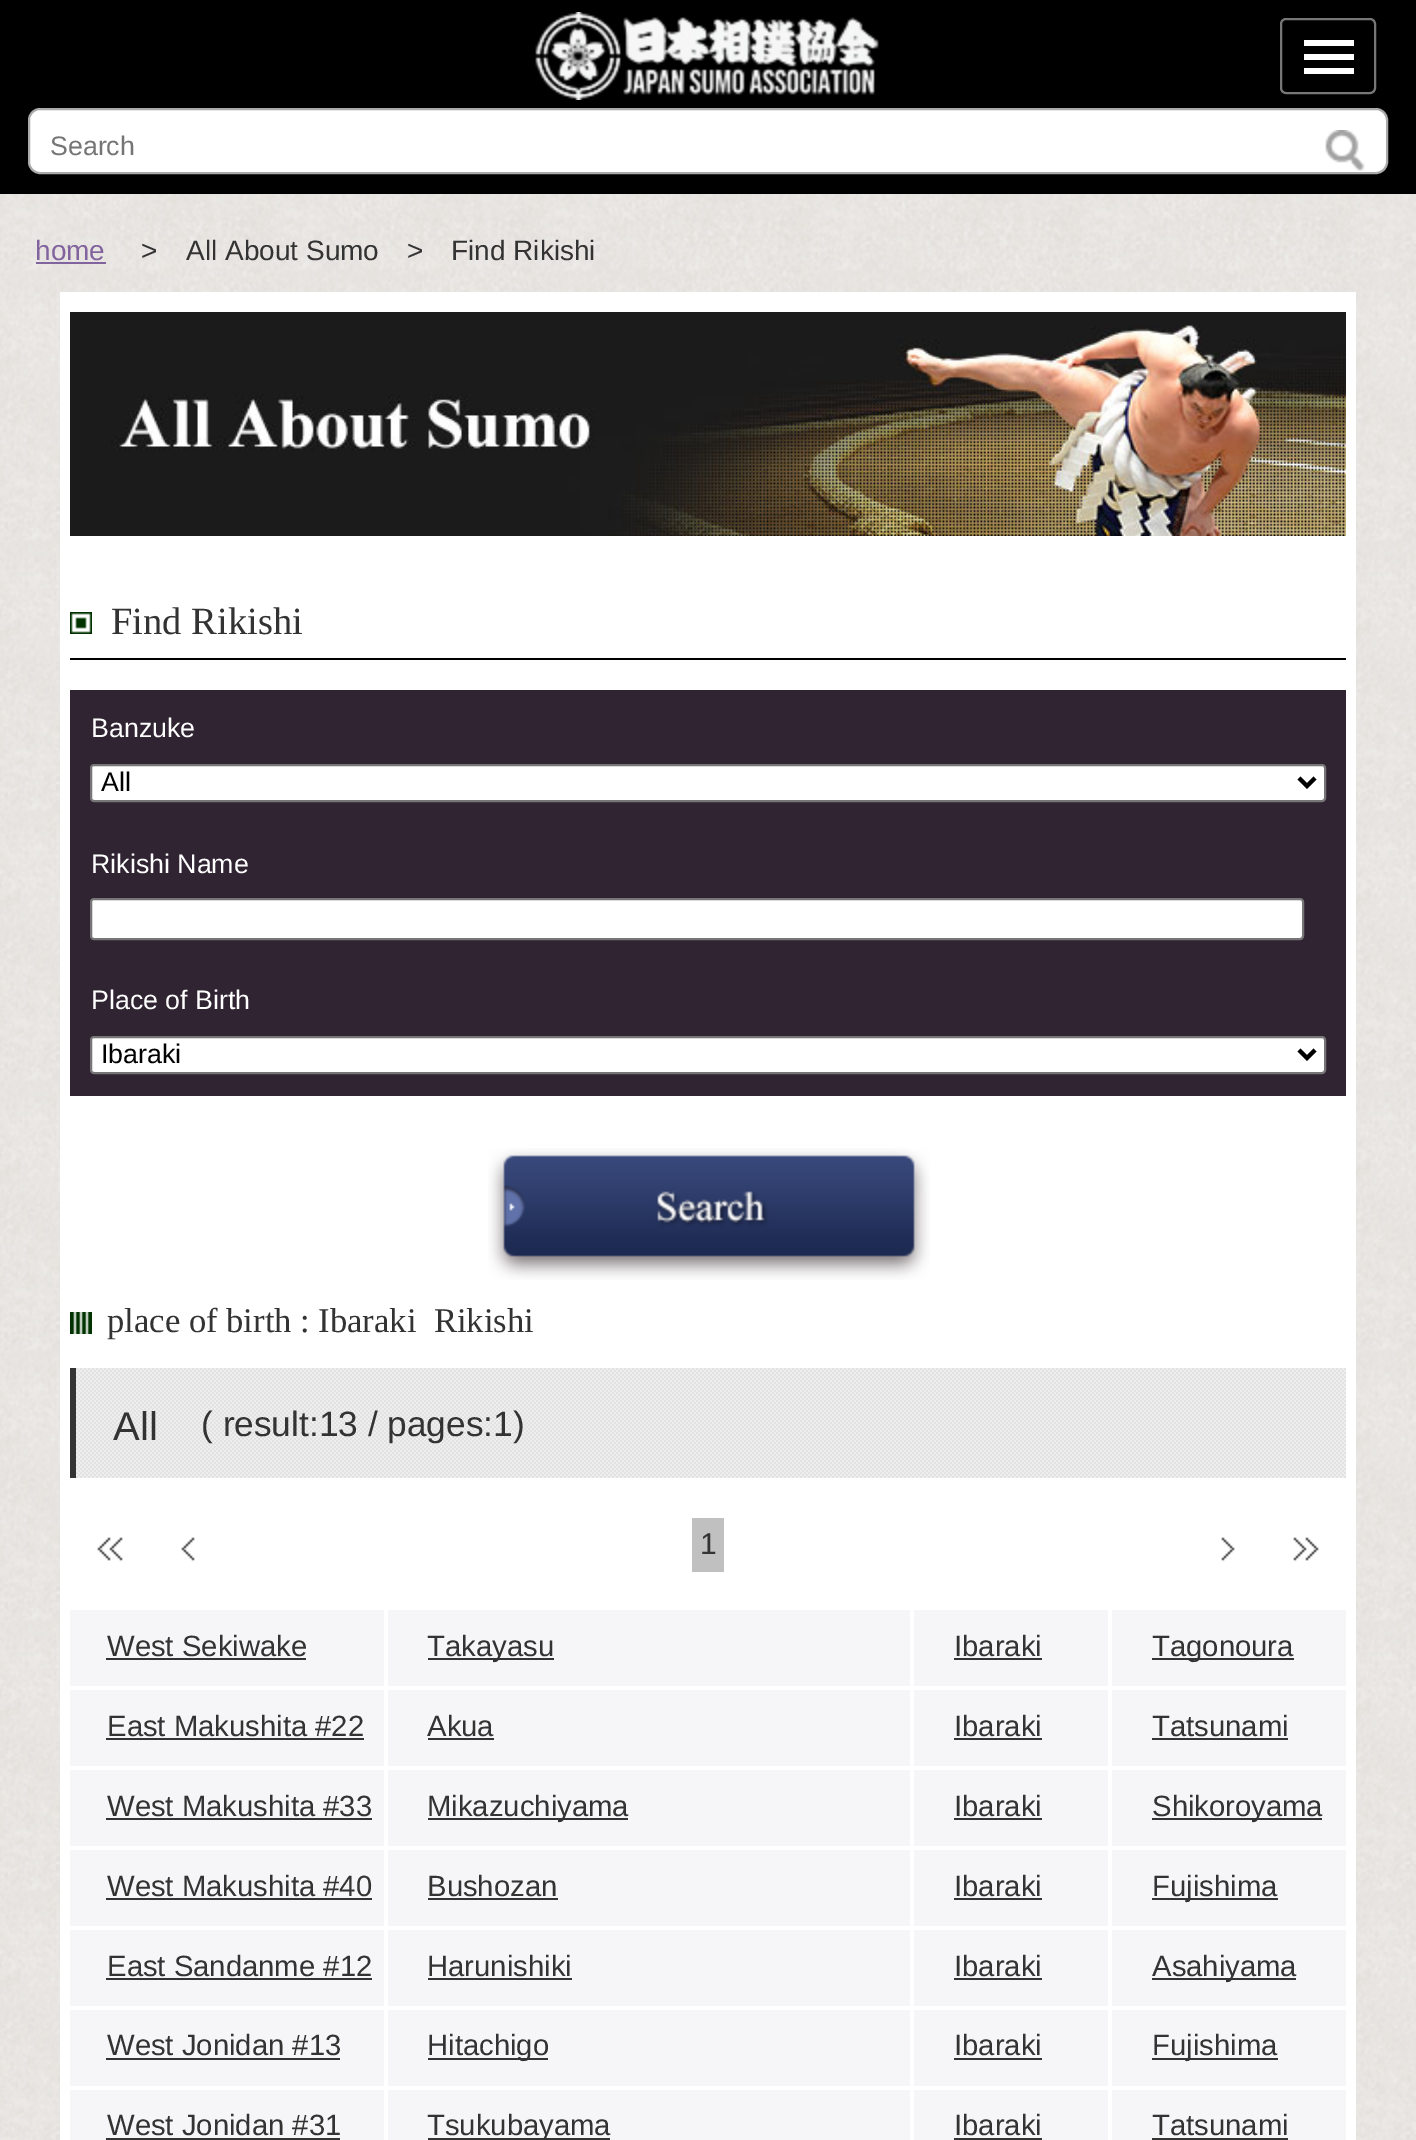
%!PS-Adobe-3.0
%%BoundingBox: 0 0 1416 2140
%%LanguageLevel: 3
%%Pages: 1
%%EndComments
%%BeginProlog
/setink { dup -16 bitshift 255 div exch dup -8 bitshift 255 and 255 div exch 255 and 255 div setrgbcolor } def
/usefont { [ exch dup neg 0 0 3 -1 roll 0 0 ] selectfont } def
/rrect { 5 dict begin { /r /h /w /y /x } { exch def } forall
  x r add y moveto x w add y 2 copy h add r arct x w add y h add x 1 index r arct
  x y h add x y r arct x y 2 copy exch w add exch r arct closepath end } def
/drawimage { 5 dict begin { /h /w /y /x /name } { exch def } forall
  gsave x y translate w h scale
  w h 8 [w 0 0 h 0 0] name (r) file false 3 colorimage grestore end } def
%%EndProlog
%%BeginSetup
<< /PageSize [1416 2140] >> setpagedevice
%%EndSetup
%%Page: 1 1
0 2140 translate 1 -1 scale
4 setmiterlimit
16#FFFFFF setink
0 0 1416 2140 rectfill
(img1.raw) 0 194 1416 1946 drawimage
16#000000 setink
0 0 1416 194 rectfill
(img2.raw) 535 12 344 88 drawimage
16#777777 setink
2 setlinewidth
1281 19 94 74 5 rrect stroke
[
    [1304 40 50 6 16#FFFFFF]
    [1304 54 50 6 16#FFFFFF]
    [1304 68 50 6 16#FFFFFF]
] { aload pop setink rectfill } forall
29 109 1358 64 11 rrect gsave fill grestore
16#AAAAAA setink
stroke
/LiberationSans-Regular 26.75 usefont
16#757575 setink
50 155 moveto (Search) show
(img3.raw) 1325 130 40 41 drawimage
/LiberationSans-Regular 28 usefont
16#81639D setink
35 260 moveto (home) show
36 262 70 2 rectfill
16#333333 setink
[
    [(>) 141 260]
    [(All About Sumo) 186 260]
    [(>) 407 260]
    [(Find Rikishi) 451 260]
] { aload pop moveto show } forall
16#FFFFFF setink
60 292 1296 1848 rectfill
(img4.raw) 70 312 1276 224 drawimage
(img5.raw) 70 612 22 22 drawimage
16#000000 setink
70 658 1276 2 rectfill
/LiberationSerif-Regular 38.5 usefont
16#333333 setink
111 634 moveto (Find Rikishi) show
16#302332 setink
70 690 1276 406 rectfill
/LiberationSans-Regular 26.75 usefont
16#FFFFFF setink
91 737 moveto (Banzuke) show
91 765 1234 36 3 rrect gsave fill grestore
16#767676 setink
stroke
16#000000 setink
4 setlinewidth
1299 778 moveto 1307 786 lineto 1315 778 lineto stroke
101 791 moveto (All) show
16#FFFFFF setink
91 873 moveto (Rikishi Name) show
91 899 1212 40 3 rrect gsave fill grestore
16#767676 setink
2 setlinewidth
stroke
16#FFFFFF setink
91 1009 moveto (Place of Birth) show
91 1037 1234 36 3 rrect gsave fill grestore
16#767676 setink
stroke
16#000000 setink
4 setlinewidth
1299 1050 moveto 1307 1058 lineto 1315 1050 lineto stroke
101 1063 moveto (Ibaraki) show
(img6.raw) 488 1148 442 132 drawimage
(img7.raw) 70 1312 22 22 drawimage
/LiberationSerif-Regular 34.6 usefont
16#333333 setink
107 1332 moveto (place of birth : Ibaraki  Rikishi) show
(img8.raw) 76 1368 1270 110 drawimage
70 1368 6 110 rectfill
/LiberationSans-Regular 40 usefont
113 1440 moveto (All) show
/LiberationSans-Regular 35.25 usefont
201 1436 moveto (\( result:13 / pages:1\)) show
(img9.raw) 97 1537 26 24 drawimage
(img10.raw) 181 1537 14 24 drawimage
16#C0C0C0 setink
692 1518 32 54 rectfill
/LiberationSans-Regular 30 usefont
16#333333 setink
700 1554 moveto (1) show
(img11.raw) 1221 1537 14 24 drawimage
(img12.raw) 1293 1537 26 24 drawimage
16#F6F6F8 setink
70 1610 314 76 rectfill
/LiberationSans-Regular 29.25 usefont
16#333333 setink
107 1656 moveto (West Sekiwake) show
[
    [106 1658 200 2 16#333333]
    [388 1610 522 76 16#F6F6F8]
    [428 1658 126 2 16#333333]
] { aload pop setink rectfill } forall
427 1656 moveto (Takayasu) show
16#F6F6F8 setink
914 1610 194 76 rectfill
16#333333 setink
954 1656 moveto (Ibaraki) show
[
    [954 1658 88 2 16#333333]
    [1112 1610 234 76 16#F6F6F8]
    [1152 1658 142 2 16#333333]
] { aload pop setink rectfill } forall
1152 1656 moveto (Tagonoura) show
16#F6F6F8 setink
70 1690 314 76 rectfill
16#333333 setink
107 1736 moveto (East Makushita #22) show
106 1738 258 2 rectfill
16#F6F6F8 setink
388 1690 522 76 rectfill
16#333333 setink
427 1736 moveto (Akua) show
428 1738 66 2 rectfill
16#F6F6F8 setink
914 1690 194 76 rectfill
16#333333 setink
954 1736 moveto (Ibaraki) show
954 1738 88 2 rectfill
16#F6F6F8 setink
1112 1690 234 76 rectfill
16#333333 setink
1152 1736 moveto (Tatsunami) show
1152 1738 136 2 rectfill
16#F6F6F8 setink
70 1770 314 76 rectfill
16#333333 setink
107 1816 moveto (West Makushita #33) show
[
    [106 1818 266 2 16#333333]
    [388 1770 522 76 16#F6F6F8]
    [428 1818 200 2 16#333333]
] { aload pop setink rectfill } forall
427 1816 moveto (Mikazuchiyama) show
16#F6F6F8 setink
914 1770 194 76 rectfill
16#333333 setink
954 1816 moveto (Ibaraki) show
[
    [954 1818 88 2 16#333333]
    [1112 1770 234 76 16#F6F6F8]
    [1152 1818 170 2 16#333333]
] { aload pop setink rectfill } forall
1152 1816 moveto (Shikoroyama) show
16#F6F6F8 setink
70 1850 314 76 rectfill
16#333333 setink
107 1896 moveto (West Makushita #40) show
106 1898 266 2 rectfill
16#F6F6F8 setink
388 1850 522 76 rectfill
16#333333 setink
427 1896 moveto (Bushozan) show
428 1898 130 2 rectfill
16#F6F6F8 setink
914 1850 194 76 rectfill
16#333333 setink
954 1896 moveto (Ibaraki) show
[
    [954 1898 88 2 16#333333]
    [1112 1850 234 76 16#F6F6F8]
    [1152 1898 126 2 16#333333]
] { aload pop setink rectfill } forall
1152 1896 moveto (Fujishima) show
16#F6F6F8 setink
70 1930 314 76 rectfill
16#333333 setink
107 1976 moveto (East Sandanme #12) show
106 1978 266 2 rectfill
16#F6F6F8 setink
388 1930 522 76 rectfill
16#333333 setink
427 1976 moveto (Harunishiki) show
428 1978 144 2 rectfill
16#F6F6F8 setink
914 1930 194 76 rectfill
16#333333 setink
954 1976 moveto (Ibaraki) show
[
    [954 1978 88 2 16#333333]
    [1112 1930 234 76 16#F6F6F8]
    [1152 1978 144 2 16#333333]
] { aload pop setink rectfill } forall
1152 1976 moveto (Asahiyama) show
16#F6F6F8 setink
70 2010 314 76 rectfill
16#333333 setink
107 2055 moveto (West Jonidan #13) show
[
    [106 2058 234 2 16#333333]
    [388 2010 522 76 16#F6F6F8]
    [428 2058 120 2 16#333333]
] { aload pop setink rectfill } forall
427 2055 moveto (Hitachigo) show
16#F6F6F8 setink
914 2010 194 76 rectfill
16#333333 setink
954 2055 moveto (Ibaraki) show
[
    [954 2058 88 2 16#333333]
    [1112 2010 234 76 16#F6F6F8]
    [1152 2058 126 2 16#333333]
] { aload pop setink rectfill } forall
1152 2055 moveto (Fujishima) show
16#F6F6F8 setink
70 2090 314 50 rectfill
16#333333 setink
107 2135 moveto (West Jonidan #31) show
[
    [106 2138 234 2 16#333333]
    [388 2090 522 50 16#F6F6F8]
    [428 2138 182 2 16#333333]
] { aload pop setink rectfill } forall
427 2135 moveto (Tsukubayama) show
16#F6F6F8 setink
914 2090 194 50 rectfill
16#333333 setink
954 2135 moveto (Ibaraki) show
954 2138 88 2 rectfill
16#F6F6F8 setink
1112 2090 234 50 rectfill
16#333333 setink
1152 2135 moveto (Tatsunami) show
1152 2138 136 2 rectfill
showpage
%%EOF
